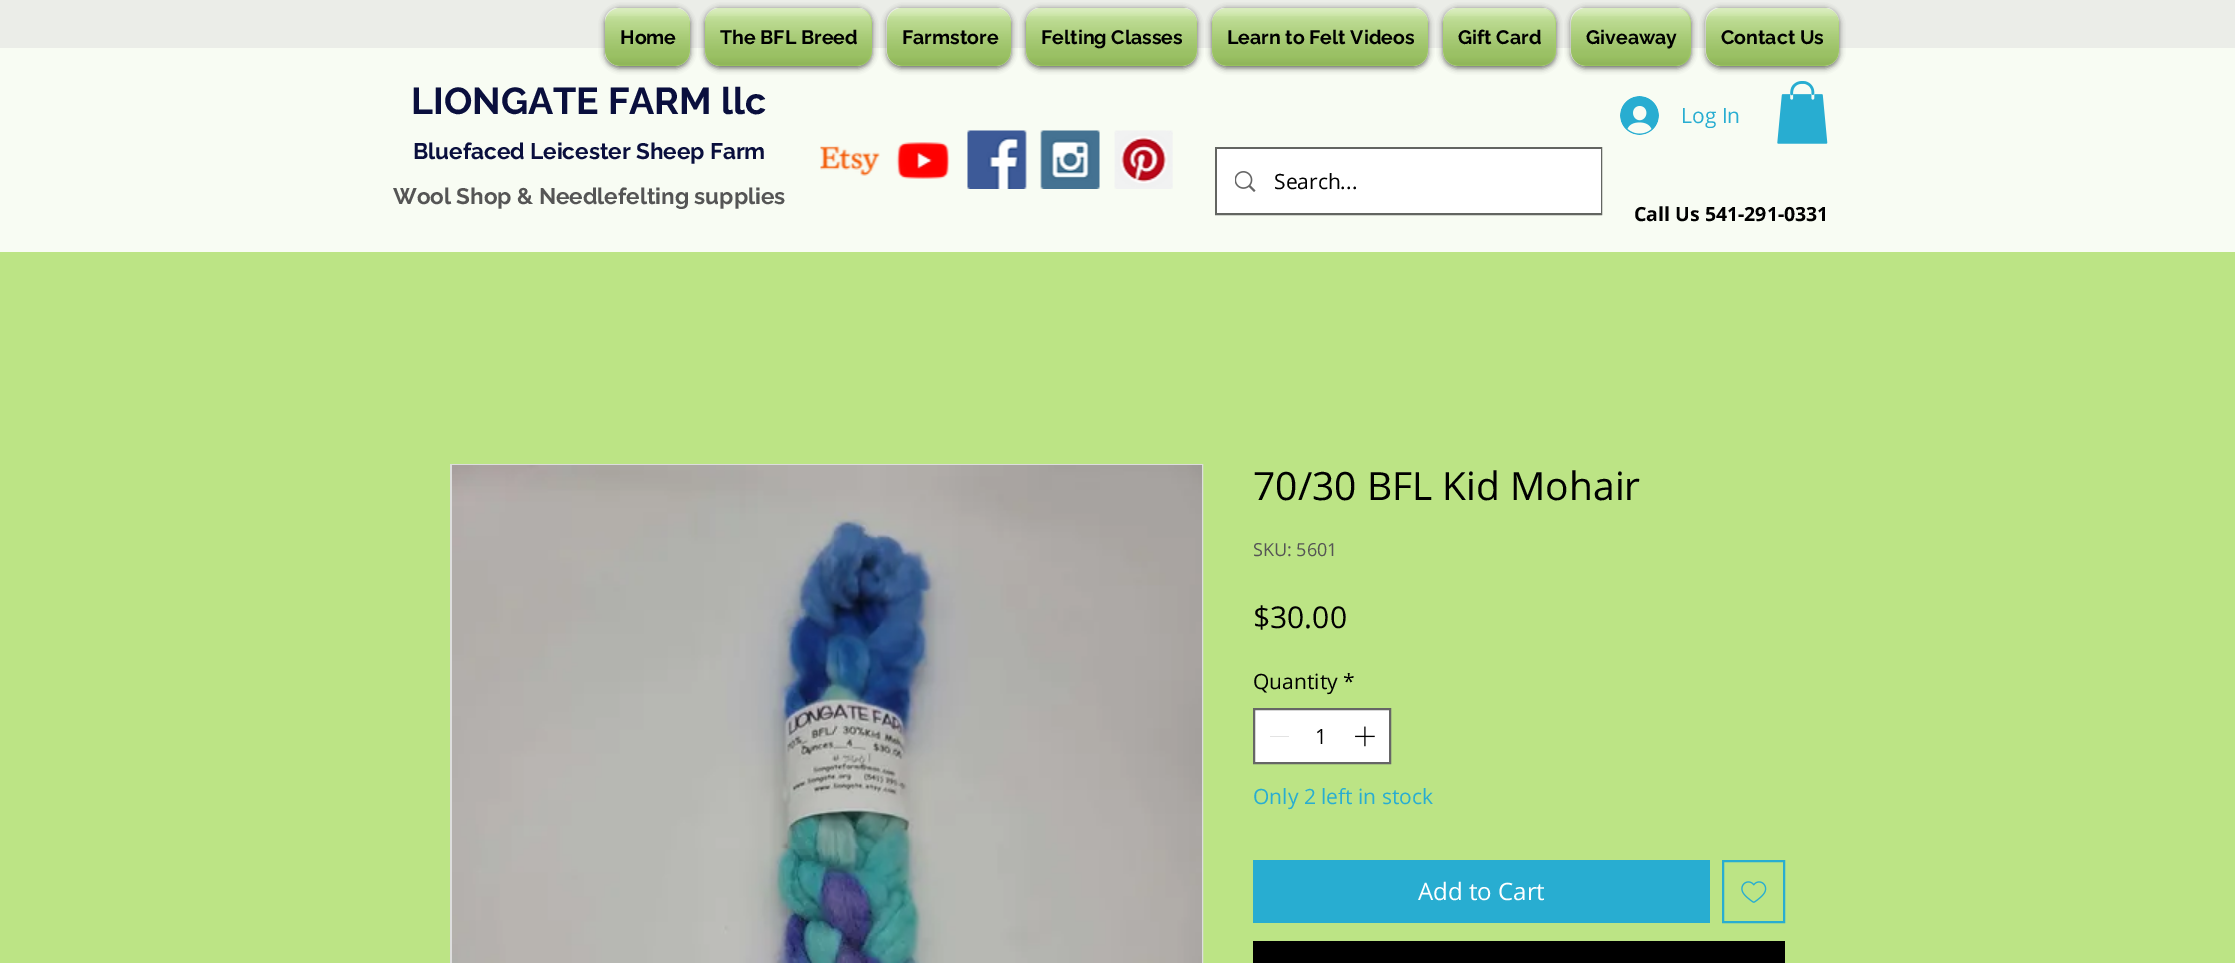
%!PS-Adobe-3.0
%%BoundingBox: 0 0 2235 963
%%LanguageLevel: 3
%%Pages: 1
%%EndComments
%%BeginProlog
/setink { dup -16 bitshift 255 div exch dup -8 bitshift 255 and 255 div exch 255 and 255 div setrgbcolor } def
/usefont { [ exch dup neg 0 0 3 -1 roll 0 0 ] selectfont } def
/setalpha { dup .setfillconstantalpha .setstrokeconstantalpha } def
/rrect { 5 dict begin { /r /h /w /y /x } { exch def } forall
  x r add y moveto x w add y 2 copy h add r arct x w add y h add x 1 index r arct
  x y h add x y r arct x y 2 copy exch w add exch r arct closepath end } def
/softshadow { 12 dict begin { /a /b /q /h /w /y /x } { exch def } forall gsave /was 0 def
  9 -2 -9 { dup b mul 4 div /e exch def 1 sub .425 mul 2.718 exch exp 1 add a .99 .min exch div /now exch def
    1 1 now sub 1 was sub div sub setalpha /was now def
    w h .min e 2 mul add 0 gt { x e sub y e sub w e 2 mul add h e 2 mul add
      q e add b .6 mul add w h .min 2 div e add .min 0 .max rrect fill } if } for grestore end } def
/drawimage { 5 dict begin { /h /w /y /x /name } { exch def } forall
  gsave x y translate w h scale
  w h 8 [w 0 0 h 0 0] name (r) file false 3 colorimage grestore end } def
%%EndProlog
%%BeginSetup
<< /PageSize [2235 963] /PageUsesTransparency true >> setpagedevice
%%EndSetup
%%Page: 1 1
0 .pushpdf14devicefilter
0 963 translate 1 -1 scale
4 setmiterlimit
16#BCE485 setink
0 0 2235 963 rectfill
16#EBEDE8 setink
0 0 2235 48 rectfill
16#F8FCF3 setink
0 48 2235 204 rectfill
16#000000 setink
605 9 85 59 15 3 0.6 softshadow
16#A2D160 setink
605 8 85 58 15 rrect fill
(img1.raw) 605 8 85 58 drawimage
(img2.raw) 605 16 85 51 drawimage
/Raleway-Bold 19.5 usefont
16#000000 setink
620 44 moveto (Home) show
705 9 167 59 15 3 0.6 softshadow
16#A2D160 setink
705 8 167 58 15 rrect fill
(img3.raw) 705 8 167 58 drawimage
(img4.raw) 705 16 167 51 drawimage
16#000000 setink
720 44 moveto (The BFL Breed) show
887 9 124 59 15 3 0.6 softshadow
16#A2D160 setink
887 8 124 58 15 rrect fill
(img5.raw) 886 8 125 58 drawimage
(img6.raw) 886 16 125 51 drawimage
16#000000 setink
902 44 moveto (Farmstore) show
1026 9 171 59 15 3 0.6 softshadow
16#A2D160 setink
1026 8 171 58 15 rrect fill
(img7.raw) 1026 8 171 58 drawimage
(img8.raw) 1026 16 171 51 drawimage
16#000000 setink
1041 44 moveto (Felting Classes) show
1212 9 216 59 15 3 0.6 softshadow
16#A2D160 setink
1212 8 216 58 15 rrect fill
(img9.raw) 1212 8 216 58 drawimage
(img10.raw) 1212 16 216 51 drawimage
16#000000 setink
1227 44 moveto (Learn to Felt Videos) show
1443 9 113 59 15 3 0.6 softshadow
16#A2D160 setink
1443 8 113 58 15 rrect fill
(img11.raw) 1443 8 113 58 drawimage
(img12.raw) 1443 16 113 51 drawimage
16#000000 setink
1458 44 moveto (Gift Card) show
1571 9 120 59 15 3 0.6 softshadow
16#A2D160 setink
1571 8 120 58 15 rrect fill
(img13.raw) 1570 8 121 58 drawimage
(img14.raw) 1570 16 121 51 drawimage
16#000000 setink
1586 44 moveto (Giveaway) show
1706 9 133 59 15 3 0.6 softshadow
16#A2D160 setink
1706 8 133 58 15 rrect fill
(img15.raw) 1705 8 135 58 drawimage
(img16.raw) 1705 16 135 51 drawimage
16#000000 setink
1721 44 moveto (Contact Us) show
/Raleway-Bold 37.5 usefont
16#0A0F3D setink
411 114 moveto (LIONGATE FARM llc) show
/Raleway-Bold 22.5 usefont
413 159 moveto (Bluefaced Leicester Sheep Farm) show
16#555555 setink
393 204 moveto (Wool Shop & Needlefelting supplies) show
(img17.raw) 1620 96 39 39 drawimage
/OpenSans-Regular 21 usefont
16#28ADD1 setink
1681 123 moveto (Log In) show
(img18.raw) 1777 81 51 63 drawimage
(img19.raw) 820 145 60 31 drawimage
(img20.raw) 896 142 54 37 drawimage
(img21.raw) 967 130 60 59 drawimage
(img22.raw) 1040 130 60 59 drawimage
(img23.raw) 1114 130 59 59 drawimage
16#636561 setink
2 setlinewidth
1216 148 385 66 rectstroke
16#FFFFFF setink
1217 149 384 64 rectfill
(img24.raw) 1235 171 21 21 drawimage
16#000000 setink
1274 189 moveto (Search...) show
/OpenSans-Bold 19.5 usefont
1634 221 moveto (Call Us 541-291-0331) show
16#DDDDDD setink
451 465 751 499 rectstroke
(img25.raw) 452 465 750 498 drawimage
/OpenSans-Regular 39 usefont
16#000000 setink
1253 500 moveto (70/30 BFL Kid Mohair) show
/OpenSans-Regular 18 usefont
16#555555 setink
1253 556 moveto (SKU: 5601) show
/OpenSans-Regular 30 usefont
16#000000 setink
1253 628 moveto ($30.00) show
/OpenSans-Regular 21 usefont
1253 689 moveto (Quantity) show
1343 689 moveto (*) show
16#FFFFFF setink
1254 709 moveto 1390 709 lineto 1390 763 lineto 1254 763 lineto closepath gsave fill grestore
16#666666 setink
stroke
16#E3E3E3 setink
1270 736 19 1 rectfill
16#000000 setink
1315 744 moveto (1) show
(img26.raw) 1355 726 20 21 drawimage
16#28ADD1 setink
1253 804 moveto (Only 2 left in stock) show
1253 860 457 63 rectfill
/OpenSans-Regular 24 usefont
16#FFFFFF setink
1418 900 moveto (Add to Cart) show
16#28ADD1 setink
1723 861 61 61 rectstroke
(img27.raw) 1741 881 26 22 drawimage
16#000000 setink
1253 941 532 22 rectfill
.poppdf14devicefilter showpage
%%EOF
